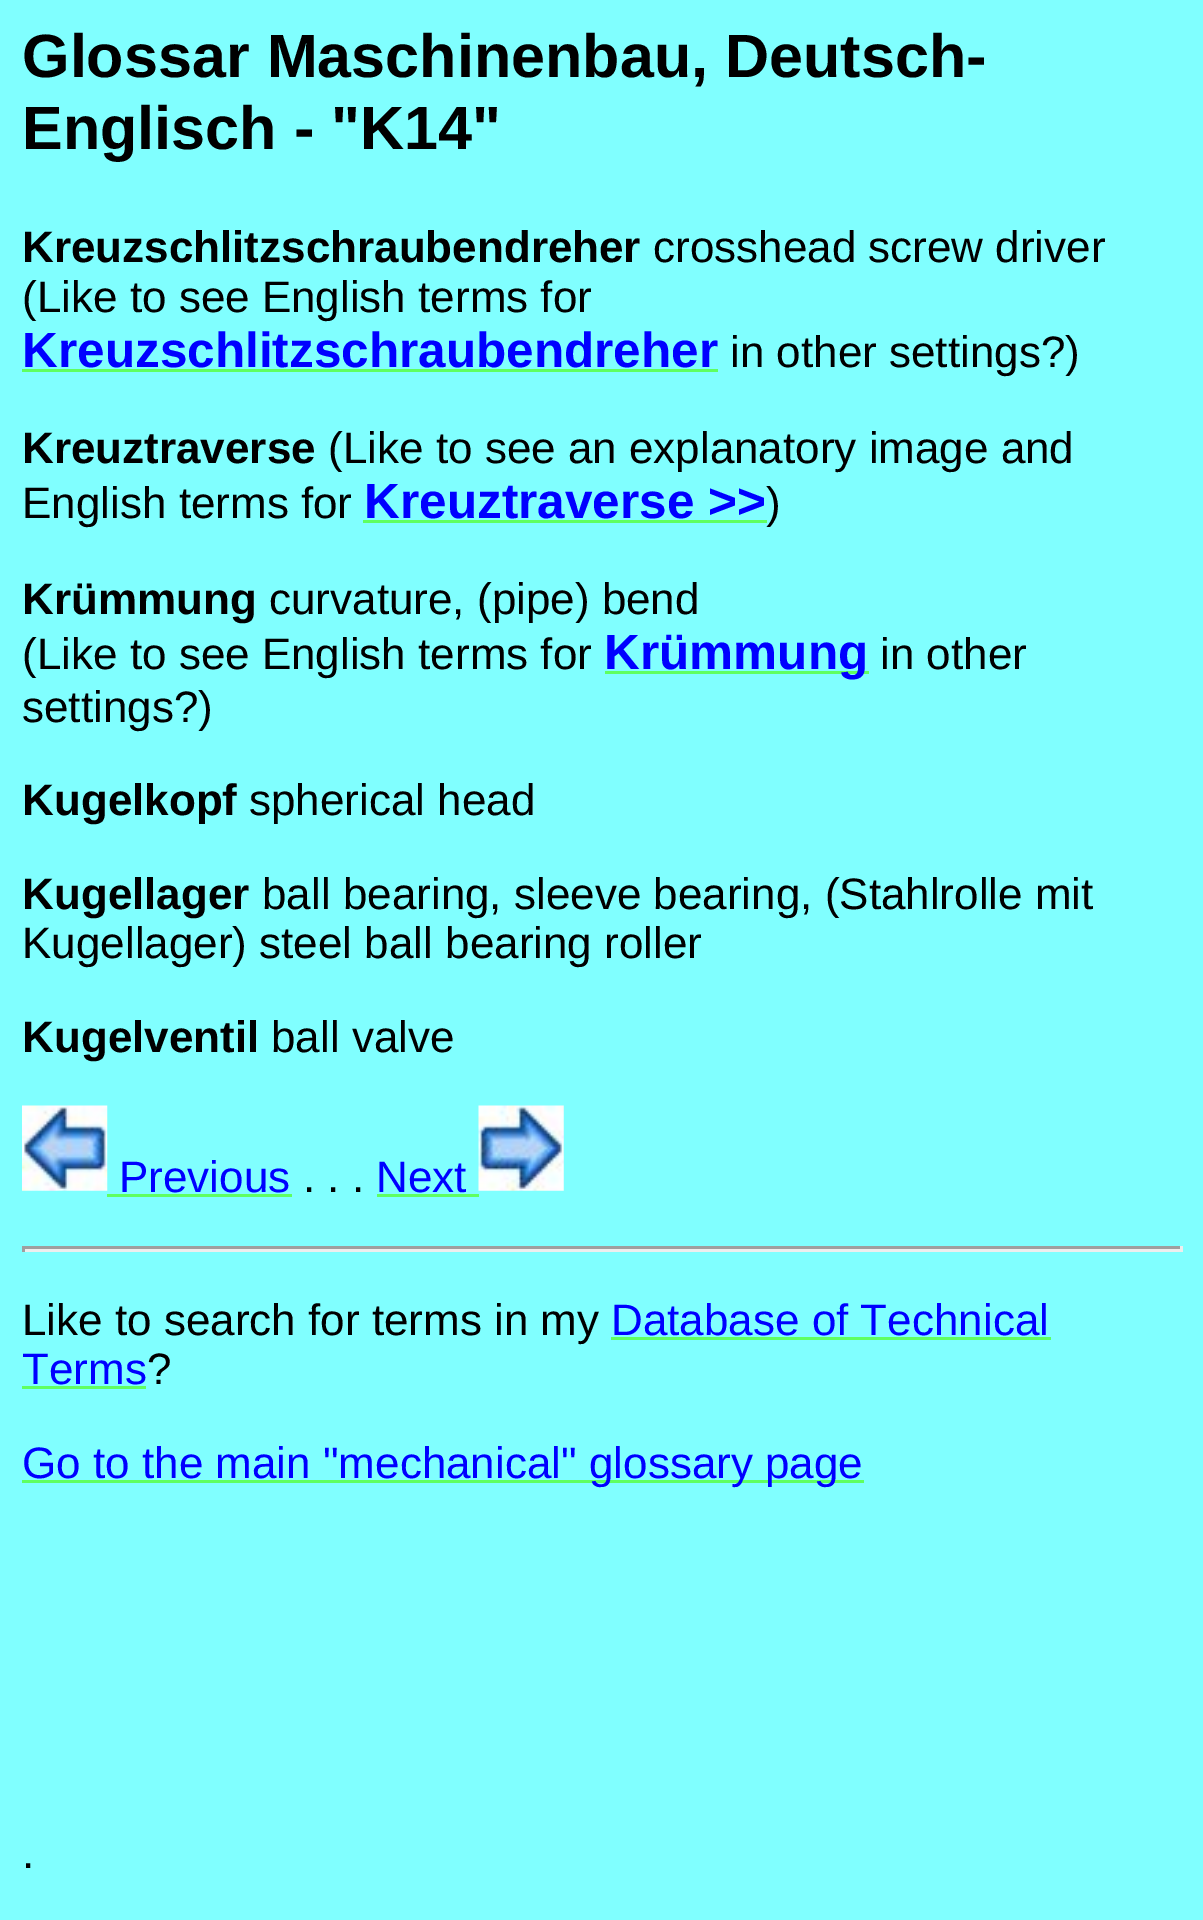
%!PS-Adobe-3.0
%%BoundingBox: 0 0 1203 1920
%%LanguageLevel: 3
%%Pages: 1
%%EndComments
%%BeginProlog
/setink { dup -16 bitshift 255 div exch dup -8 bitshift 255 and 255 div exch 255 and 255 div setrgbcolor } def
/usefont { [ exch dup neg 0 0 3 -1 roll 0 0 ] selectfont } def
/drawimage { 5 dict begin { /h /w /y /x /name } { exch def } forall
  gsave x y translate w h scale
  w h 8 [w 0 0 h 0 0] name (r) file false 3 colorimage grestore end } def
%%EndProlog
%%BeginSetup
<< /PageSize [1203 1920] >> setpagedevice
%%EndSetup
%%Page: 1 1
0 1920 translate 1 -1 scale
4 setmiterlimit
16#80FFFF setink
0 0 1203 1920 rectfill
/LiberationSans-Bold 61.1 usefont
16#000000 setink
22 77 moveto (Glossar Maschinenbau, Deutsch-) show
22 149 moveto (Englisch - "K14") show
/LiberationSans-Bold 44 usefont
22 262 moveto (Kreuzschlitzschraubendreher) show
/LiberationSans-Regular 44 usefont
653 262 moveto (crosshead screw driver) show
22 312 moveto (\(Like to see English terms for) show
/LiberationSans-Bold 49.5 usefont
16#0000FF setink
22 367 moveto (Kreuzschlitzschraubendreher) show
16#5FFF5F setink
22 369 696 3 rectfill
/LiberationSans-Regular 44 usefont
16#000000 setink
730 367 moveto (in other settings?\)) show
/LiberationSans-Bold 44 usefont
22 463 moveto (Kreuztraverse) show
/LiberationSans-Regular 44 usefont
328 463 moveto (\(Like to see an explanatory image and) show
22 518 moveto (English terms for) show
/LiberationSans-Bold 49.5 usefont
16#0000FF setink
364 518 moveto (Kreuztraverse >>) show
16#5FFF5F setink
363 520 404 3 rectfill
/LiberationSans-Regular 44 usefont
16#000000 setink
766 518 moveto (\)) show
/LiberationSans-Bold 44 usefont
22 614 moveto (Krümmung) show
/LiberationSans-Regular 44 usefont
269 614 moveto (curvature, \(pipe\) bend) show
22 669 moveto (\(Like to see English terms for) show
16#5FFF5F setink
605 671 264 3 rectfill
/LiberationSans-Bold 49.5 usefont
16#0000FF setink
604 669 moveto (Krümmung) show
/LiberationSans-Regular 44 usefont
16#000000 setink
880 669 moveto (in other) show
22 722 moveto (settings?\)) show
/LiberationSans-Bold 44 usefont
22 815 moveto (Kugelkopf) show
/LiberationSans-Regular 44 usefont
249 815 moveto (spherical head) show
/LiberationSans-Bold 44 usefont
22 909 moveto (Kugellager) show
/LiberationSans-Regular 44 usefont
262 909 moveto (ball bearing, sleeve bearing, \(Stahlrolle mit) show
22 958 moveto (Kugellager\) steel ball bearing roller) show
/LiberationSans-Bold 44 usefont
22 1052 moveto (Kugelventil) show
/LiberationSans-Regular 44 usefont
271 1052 moveto (ball valve) show
(img1.raw) 22 1105 86 86 drawimage
16#0000FF setink
119 1192 moveto (Previous) show
16#5FFF5F setink
107 1194 185 3 rectfill
16#000000 setink
303 1192 moveto (. . .) show
16#0000FF setink
376 1192 moveto (Next) show
16#5FFF5F setink
377 1194 102 3 rectfill
(img2.raw) 478 1105 86 86 drawimage
[
    [22 1246 1161 3 16#9F9F9F]
    [1180 1246 3 6 16#EEEEEE]
    [22 1249 1161 3 16#EEEEEE]
    [22 1246 3 6 16#9F9F9F]
] { aload pop setink rectfill } forall
16#000000 setink
22 1335 moveto (Like to search for terms in my) show
16#0000FF setink
611 1335 moveto (Database of Technical) show
16#5FFF5F setink
611 1337 440 3 rectfill
16#0000FF setink
22 1384 moveto (Terms) show
16#5FFF5F setink
22 1386 124 3 rectfill
16#000000 setink
147 1384 moveto (?) show
16#5FFF5F setink
22 1480 842 3 rectfill
16#0000FF setink
22 1478 moveto (Go to the main "mechanical" glossary page) show
16#000000 setink
22 1868 moveto (.) show
showpage
%%EOF
